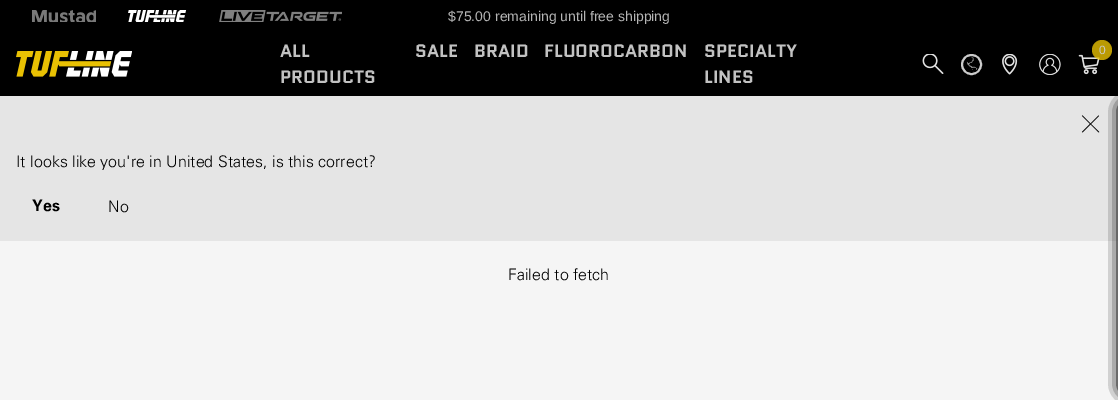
%!PS-Adobe-3.0
%%BoundingBox: 0 0 1118 400
%%LanguageLevel: 3
%%Pages: 1
%%EndComments
%%BeginProlog
/setink { dup -16 bitshift 255 div exch dup -8 bitshift 255 and 255 div exch 255 and 255 div setrgbcolor } def
/usefont { [ exch dup neg 0 0 3 -1 roll 0 0 ] selectfont } def
/setalpha { dup .setfillconstantalpha .setstrokeconstantalpha } def
/disc { newpath 0 360 arc closepath } def
/rrect { 5 dict begin { /r /h /w /y /x } { exch def } forall
  x r add y moveto x w add y 2 copy h add r arct x w add y h add x 1 index r arct
  x y h add x y r arct x y 2 copy exch w add exch r arct closepath end } def
/softshadow { 12 dict begin { /a /b /q /h /w /y /x } { exch def } forall gsave /was 0 def
  9 -2 -9 { dup b mul 4 div /e exch def 1 sub .425 mul 2.718 exch exp 1 add a .99 .min exch div /now exch def
    1 1 now sub 1 was sub div sub setalpha /was now def
    w h .min e 2 mul add 0 gt { x e sub y e sub w e 2 mul add h e 2 mul add
      q e add b .6 mul add w h .min 2 div e add .min 0 .max rrect fill } if } for grestore end } def
/drawimage { 5 dict begin { /h /w /y /x /name } { exch def } forall
  gsave x y translate w h scale
  w h 8 [w 0 0 h 0 0] name (r) file false 3 colorimage grestore end } def
%%EndProlog
%%BeginSetup
<< /PageSize [1118 400] /PageUsesTransparency true >> setpagedevice
%%EndSetup
%%Page: 1 1
0 .pushpdf14devicefilter
0 400 translate 1 -1 scale
4 setmiterlimit
16#F5F5F5 setink
0 0 1118 400 rectfill
16#000000 setink
0 0 1118 96 rectfill
(img1.raw) 32 10 64 12 drawimage
(img2.raw) 128 10 59 12 drawimage
(img3.raw) 219 10 123 12 drawimage
/LiberationSans-Regular 14 usefont
16#B5B5B5 setink
448 21 moveto ($75.00) show
495 21 moveto (remaining until free shipping) show
/Quantico-Bold 18 usefont
16#C2C2C2 setink
[
    [(ALL) 280 57]
    [(PRODUCTS) 280 83]
    [(SALE) 415 57]
    [(BRAID) 474 57]
    [(FLUOROCARBON) 544 57]
    [(SPECIALTY) 704 57]
    [(LINES) 704 83]
] { aload pop moveto show } forall
(img4.raw) 1078 54 22 21 drawimage
0.8 setalpha
16#E9C104 setink
1102 50 10 disc fill
/LiberationSans-Regular 12 usefont
1 setalpha
16#CBCAC2 setink
1099 54 moveto (0) show
(img5.raw) 922 54 22 20 drawimage
16#CCCCCC setink
2 setlinewidth
971.5 64.5 9.5 disc stroke
(img6.raw) 966 57 12 15 drawimage
(img7.raw) 1002 54 16 21 drawimage
(img8.raw) 1039 54 22 21 drawimage
(img9.raw) 16 51 116 26 drawimage
16#E5E5E5 setink
0 96 1118 145 rectfill
16#000000 setink
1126 108 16 280 0 8 1 softshadow
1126 108 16 280 0 8 1 softshadow
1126 108 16 280 0 8 1 softshadow
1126 108 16 280 0 8 1 softshadow
(img10.raw) 1081 115 19 18 drawimage
/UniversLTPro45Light-Regular 16 usefont
16 167 moveto (It looks like you're in United States, is this correct?) show
/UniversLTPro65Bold-Regular 16 usefont
32 211 moveto (Yes) show
/UniversLTPro45Light-Regular 16 usefont
108 212 moveto (No) show
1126 108 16 280 0 8 1 softshadow
508 280 moveto (Failed to fetch) show
.poppdf14devicefilter showpage
%%EOF
